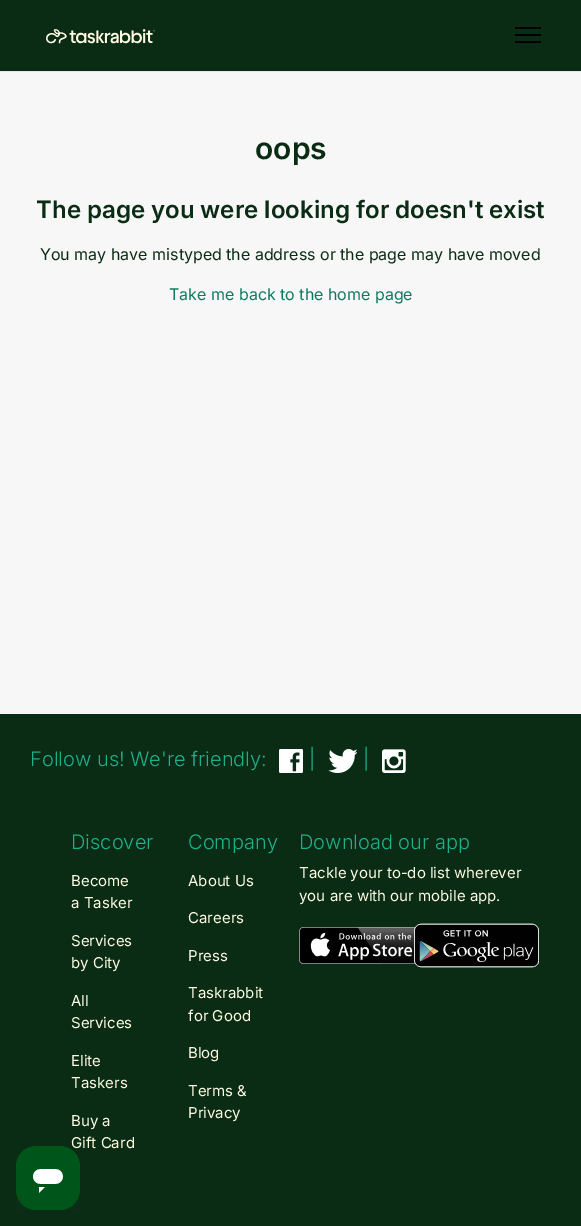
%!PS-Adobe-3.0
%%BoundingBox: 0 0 581 1226
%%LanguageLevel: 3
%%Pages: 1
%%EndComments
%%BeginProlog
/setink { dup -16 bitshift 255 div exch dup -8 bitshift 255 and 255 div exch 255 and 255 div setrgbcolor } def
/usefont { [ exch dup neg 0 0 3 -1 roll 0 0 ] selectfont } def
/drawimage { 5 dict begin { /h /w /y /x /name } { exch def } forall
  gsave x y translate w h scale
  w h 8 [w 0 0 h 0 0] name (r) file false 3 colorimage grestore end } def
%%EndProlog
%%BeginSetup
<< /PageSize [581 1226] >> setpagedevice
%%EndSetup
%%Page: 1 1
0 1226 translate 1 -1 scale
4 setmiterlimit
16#F7F7F7 setink
0 0 581 1226 rectfill
16#0A2B14 setink
0 0 581 71 rectfill
16#E2E8F0 setink
0 71 581 1 rectfill
(img1.raw) 46 29 109 15 drawimage
[
    [515 34 26 2 16#000000]
    [515 27 26 2 16#000000]
    [515 41 26 2 16#000000]
] { aload pop setink rectfill } forall
/Inter-SemiBold 30 usefont
16#0A2B14 setink
255 159 moveto (oops) show
/Inter-SemiBold 24 usefont
36 218 moveto (The page you were looking for doesn't exist) show
/Inter-Regular 16 usefont
40 260 moveto (You may have mistyped the address or the page may have moved) show
16#0D7A5F setink
169 300 moveto (Take me back to the home page) show
16#0A2B14 setink
0 714 581 512 rectfill
/Inter-Light 20 usefont
16#1EB08C setink
30 766 moveto (Follow us! We're friendly:) show
(img2.raw) 279 749 24 24 drawimage
309 766 moveto (|) show
(img3.raw) 328 749 29 24 drawimage
363 766 moveto (|) show
(img4.raw) 382 749 24 24 drawimage
71 849 moveto (Discover) show
/Inter-Regular 15 usefont
16#FFFCE4 setink
[
    [(Become) 71 886]
    [(a Tasker) 71 908]
    [(Services) 71 946]
    [(by City) 71 968]
    [(All) 71 1006]
    [(Services) 71 1028]
    [(Elite) 71 1066]
    [(Taskers) 71 1088]
    [(Buy a) 71 1126]
    [(Gift Card) 71 1148]
] { aload pop moveto show } forall
/Inter-Light 20 usefont
16#1EB08C setink
188 849 moveto (Company) show
/Inter-Regular 15 usefont
16#FFFCE4 setink
[
    [(About Us) 188 886]
    [(Careers) 188 923]
    [(Press) 188 961]
    [(Taskrabbit) 188 998]
    [(for Good) 188 1021]
    [(Blog) 188 1058]
    [(Terms &) 188 1096]
    [(Privacy) 188 1118]
] { aload pop moveto show } forall
/Inter-Light 20 usefont
16#1EB08C setink
299 849 moveto (Download our app) show
/Inter-Regular 15 usefont
16#FFFCE4 setink
299 878 moveto (Tackle your to-do list wherever) show
299 901 moveto (you are with our mobile app.) show
(img5.raw) 299 927 117 37 drawimage
(img6.raw) 414 923 125 45 drawimage
(img7.raw) 16 1146 64 64 drawimage
showpage
%%EOF
